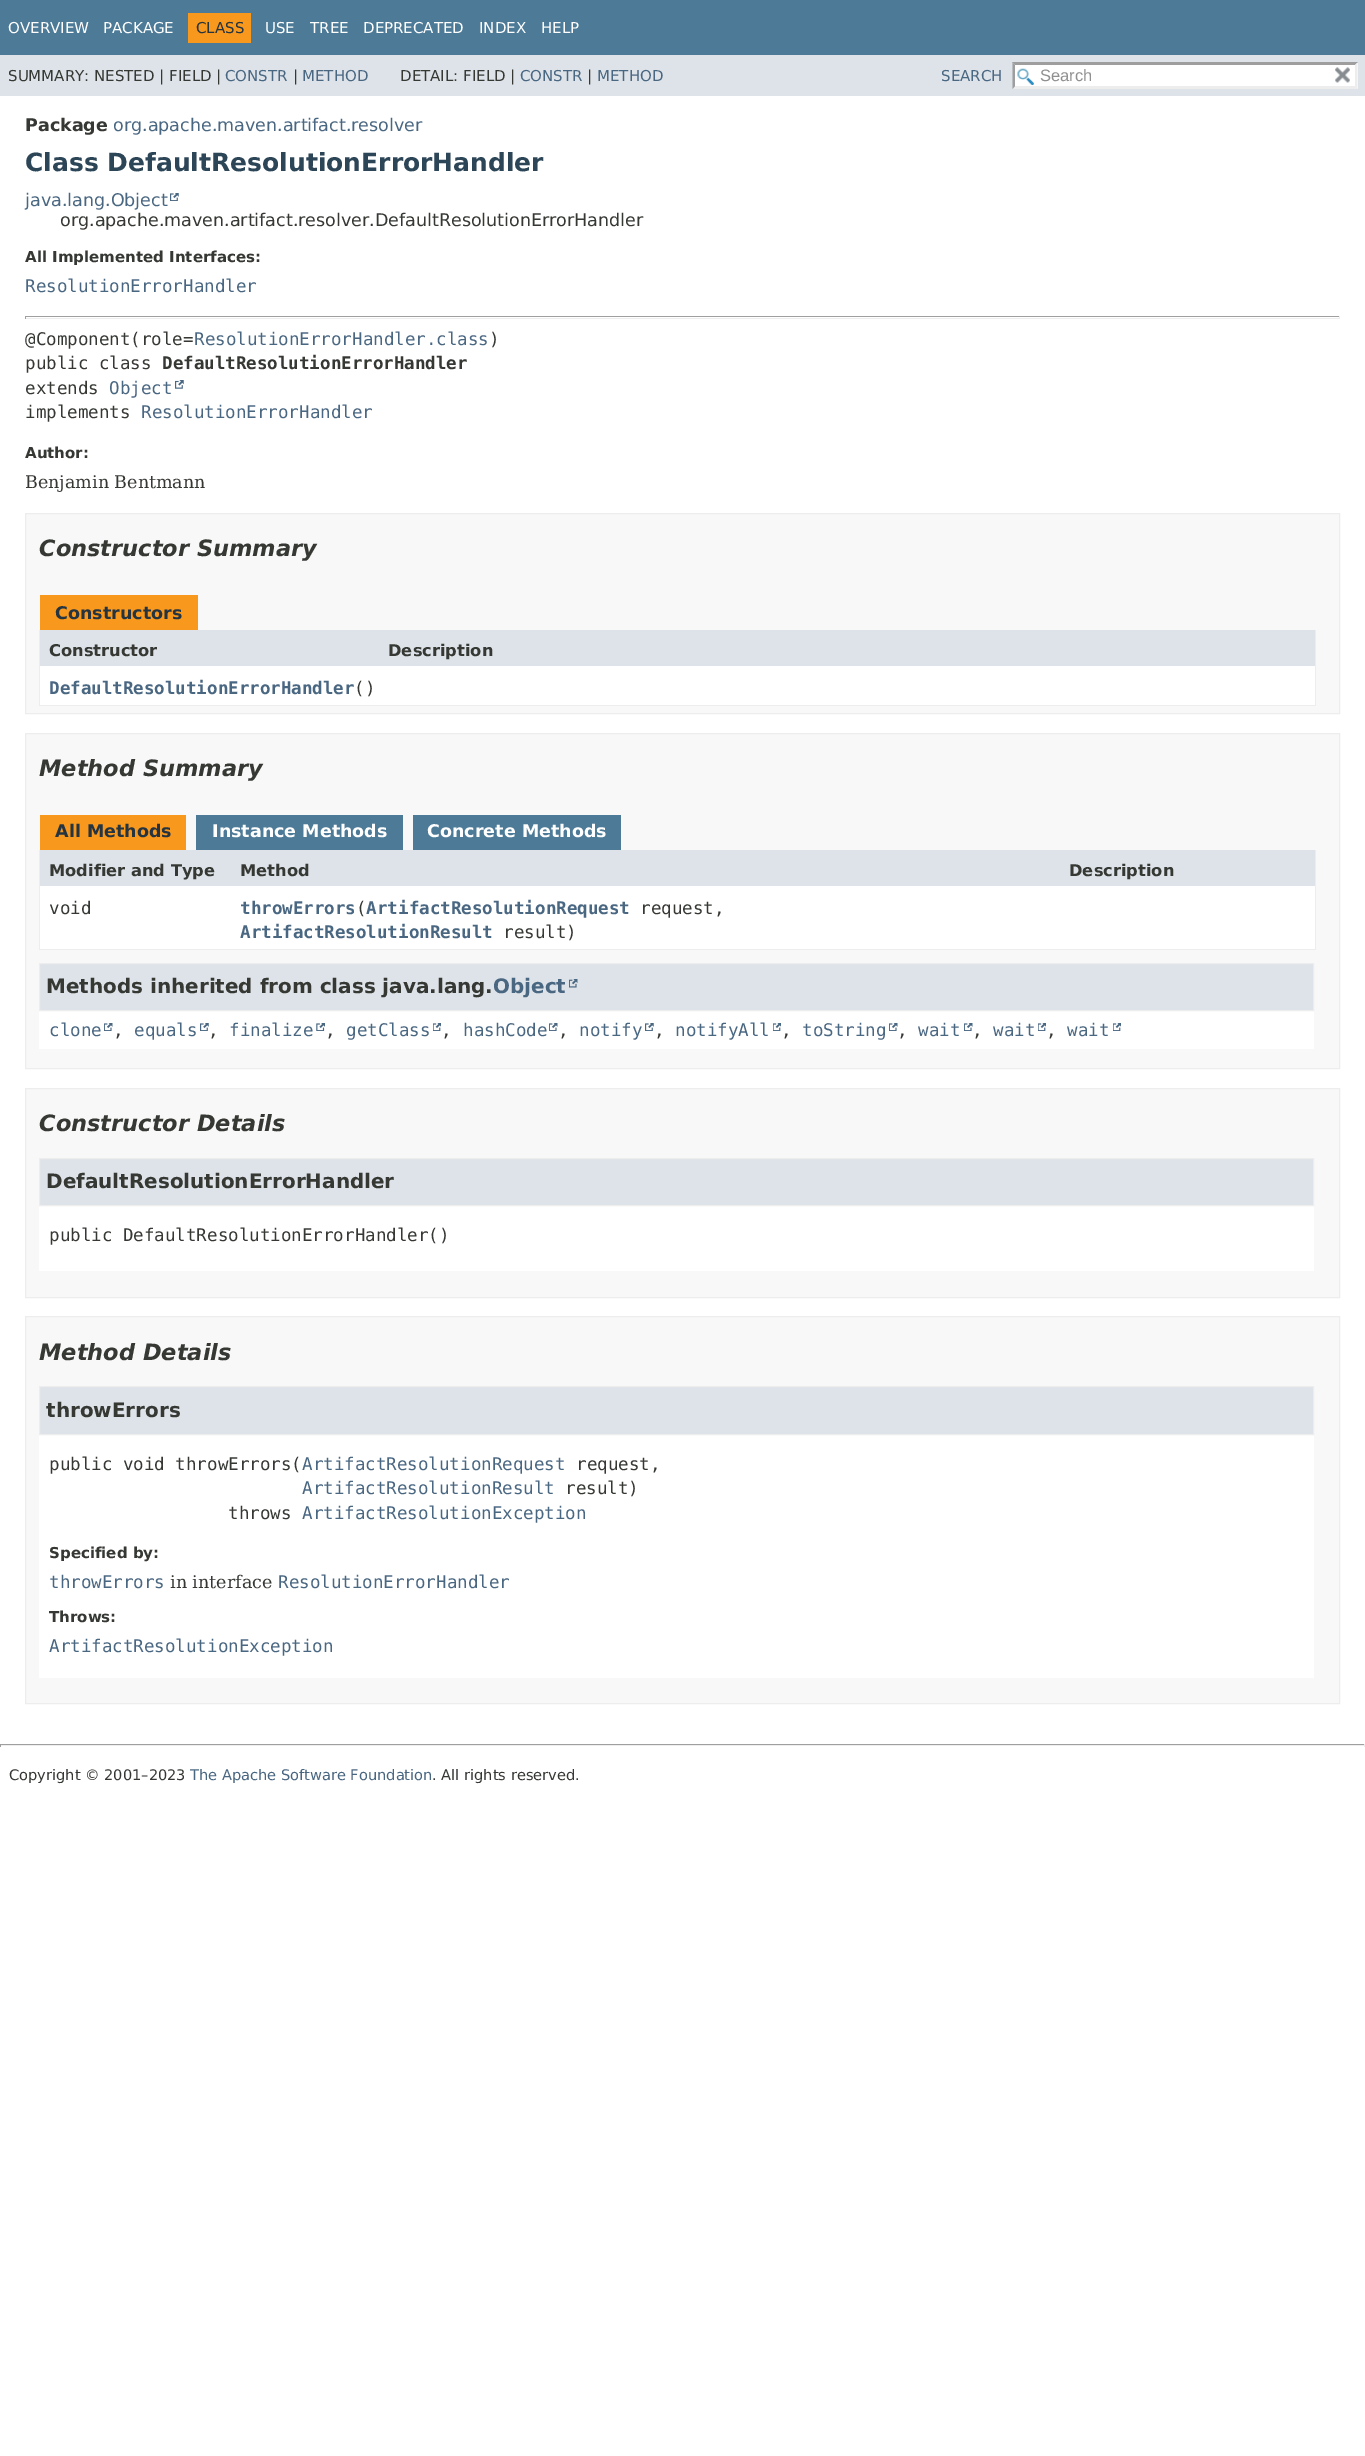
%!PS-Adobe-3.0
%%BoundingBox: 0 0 1365 2456
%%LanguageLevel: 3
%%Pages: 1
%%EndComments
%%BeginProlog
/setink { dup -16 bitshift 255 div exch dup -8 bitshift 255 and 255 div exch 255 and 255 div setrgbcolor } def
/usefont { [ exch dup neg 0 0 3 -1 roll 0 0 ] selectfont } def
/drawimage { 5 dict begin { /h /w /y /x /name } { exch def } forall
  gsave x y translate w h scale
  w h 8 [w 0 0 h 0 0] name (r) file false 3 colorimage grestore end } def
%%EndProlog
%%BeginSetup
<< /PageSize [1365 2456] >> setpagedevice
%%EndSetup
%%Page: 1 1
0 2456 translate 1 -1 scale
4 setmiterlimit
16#FFFFFF setink
0 0 1365 2456 rectfill
16#4D7A97 setink
0 0 1365 55 rectfill
/DejaVuSans-Regular 15 usefont
16#FFFFFF setink
8 33 moveto (OVERVIEW) show
103 33 moveto (PACKAGE) show
16#F8981D setink
188 13 63 30 rectfill
16#253441 setink
196 33 moveto (CLASS) show
16#FFFFFF setink
[
    [(USE) 265 33]
    [(TREE) 310 33]
    [(DEPRECATED) 363 33]
    [(INDEX) 479 33]
    [(HELP) 541 33]
] { aload pop moveto show } forall
16#DEE3E9 setink
0 55 1365 41 rectfill
16#353833 setink
8 81 moveto (SUMMARY: NESTED | FIELD |) show
16#4A6782 setink
225 81 moveto (CONSTR) show
16#353833 setink
293 81 moveto (|) show
16#4A6782 setink
302 81 moveto (METHOD) show
16#353833 setink
400 81 moveto (DETAIL: FIELD |) show
16#4A6782 setink
520 81 moveto (CONSTR) show
16#353833 setink
587 81 moveto (|) show
16#4A6782 setink
597 81 moveto (METHOD) show
941 81 moveto (SEARCH) show
16#FFFFFF setink
1013 63 345 26 rectfill
(img1.raw) 1017 68 17 17 drawimage
16#9E9E9E setink
1012 62 moveto 1358 62 lineto 1355 65 lineto 1015 65 lineto closepath fill
16#EDEDED setink
1357.5 62.5 moveto 1357.5 89 lineto 1355 86 lineto 1355 65 lineto closepath fill
1358 89 moveto 1012 89 lineto 1015 86 lineto 1355 86 lineto closepath fill
16#9E9E9E setink
1012.5 89 moveto 1012.5 62.5 lineto 1015 65 lineto 1015 86 lineto closepath fill
/LiberationSans-Regular 16.5 usefont
16#909090 setink
1040 81 moveto (Search) show
(img2.raw) 1335 67 15 16 drawimage
/DejaVuSans-Bold 17.5 usefont
16#353833 setink
25 131 moveto (Package) show
/DejaVuSans-Regular 17.5 usefont
16#4A6782 setink
113 131 moveto (org.apache.maven.artifact.resolver) show
/DejaVuSans-Bold 25 usefont
16#2C4557 setink
25 171 moveto (Class DefaultResolutionErrorHandler) show
/DejaVuSans-Regular 17.5 usefont
16#4A6782 setink
25 206 moveto (java.lang.Object) show
(img3.raw) 170 193 9 8 drawimage
16#353833 setink
60 226 moveto (org.apache.maven.artifact.resolver.DefaultResolutionErrorHandler) show
/DejaVuSans-Bold 15 usefont
25 262 moveto (All Implemented Interfaces:) show
/DejaVuSansMono-Regular 17.5 usefont
16#4A6782 setink
25 292 moveto (ResolutionErrorHandler) show
[
    [25 316 1315 1 16#9F9F9F]
    [1339 316 1 3 16#EEEEEE]
    [25 318 1315 1 16#EEEEEE]
    [25 316 1 3 16#9F9F9F]
] { aload pop setink rectfill } forall
16#353833 setink
25 345 moveto (@Component\(role=) show
16#4A6782 setink
194 345 moveto (ResolutionErrorHandler.class) show
16#353833 setink
489 345 moveto (\)) show
25 369 moveto (public class) show
/DejaVuSansMono-Bold 17.5 usefont
162 369 moveto (DefaultResolutionErrorHandler) show
/DejaVuSansMono-Regular 17.5 usefont
25 394 moveto (extends) show
16#4A6782 setink
109 394 moveto (Object) show
(img4.raw) 175 380 9 9 drawimage
16#353833 setink
25 418 moveto (implements) show
16#4A6782 setink
141 418 moveto (ResolutionErrorHandler) show
/DejaVuSans-Bold 15 usefont
16#353833 setink
25 458 moveto (Author:) show
/DejaVuSerif-Regular 17.5 usefont
25 488 moveto (Benjamin Bentmann) show
16#F8F8F8 setink
25.5 513.5 moveto 1339.5 513.5 lineto 1339.5 713.5 lineto 25.5 713.5 lineto closepath gsave fill grestore
16#EDEDED setink
stroke
/DejaVuSans-BoldItalic 22.5 usefont
16#353833 setink
39 556 moveto (Constructor Summary) show
16#F8981D setink
40 595 158 35 rectfill
/DejaVuSans-Bold 17.5 usefont
16#253441 setink
55 619 moveto (Constructors) show
[
    [1315 630 1 76 16#EDEDED]
    [39 705 1277 1 16#EDEDED]
    [39 630 1 76 16#EDEDED]
    [40 630 1275 36 16#DEE3E9]
] { aload pop setink rectfill } forall
/DejaVuSans-Bold 16.25 usefont
16#353833 setink
49 656 moveto (Constructor) show
388 656 moveto (Description) show
16#FFFFFF setink
40 666 1275 39 rectfill
/DejaVuSansMono-Bold 17.5 usefont
16#4A6782 setink
49 694 moveto (DefaultResolutionErrorHandler) show
/DejaVuSansMono-Regular 17.5 usefont
16#353833 setink
354 694 moveto (\(\)) show
16#F8F8F8 setink
25.5 733.5 moveto 1339.5 733.5 lineto 1339.5 1068.5 lineto 25.5 1068.5 lineto closepath gsave fill grestore
16#EDEDED setink
stroke
/DejaVuSans-BoldItalic 22.5 usefont
16#353833 setink
39 776 moveto (Method Summary) show
16#F8981D setink
40 815 146 35 rectfill
/DejaVuSans-Bold 17.5 usefont
16#253441 setink
55 837 moveto (All Methods) show
16#4D7A97 setink
196 815 207 35 rectfill
16#FFFFFF setink
212 837 moveto (Instance Methods) show
16#4D7A97 setink
413 815 208 35 rectfill
16#FFFFFF setink
427 837 moveto (Concrete Methods) show
[
    [1315 850 1 100 16#EDEDED]
    [39 949 1277 1 16#EDEDED]
    [39 850 1 100 16#EDEDED]
    [40 850 1275 36 16#DEE3E9]
] { aload pop setink rectfill } forall
/DejaVuSans-Bold 16.25 usefont
16#353833 setink
[
    [(Modifier and Type) 49 876]
    [(Method) 240 876]
    [(Description) 1069 876]
] { aload pop moveto show } forall
16#FFFFFF setink
40 886 1275 63 rectfill
/DejaVuSansMono-Regular 17.5 usefont
16#353833 setink
49 914 moveto (void) show
/DejaVuSansMono-Bold 17.5 usefont
16#4A6782 setink
240 914 moveto (throwErrors ArtifactResolutionRequest) show
/DejaVuSansMono-Regular 17.5 usefont
16#353833 setink
356 914 moveto (\() show
640 914 moveto (request,) show
/DejaVuSansMono-Bold 17.5 usefont
16#4A6782 setink
240 938 moveto (ArtifactResolutionResult) show
/DejaVuSansMono-Regular 17.5 usefont
16#353833 setink
503 938 moveto (result\)) show
16#FFFFFF setink
39 1011 1275 38 rectfill
16#DEE3E9 setink
39.5 963.5 moveto 1313.5 963.5 lineto 1313.5 1010.5 lineto 39.5 1010.5 lineto closepath gsave fill grestore
16#EDEDED setink
stroke
/DejaVuSans-Bold 19.95 usefont
16#353833 setink
46 993 moveto (Methods inherited from class java.lang.) show
16#4A6782 setink
493 993 moveto (Object) show
(img5.raw) 569 979 9 9 drawimage
/DejaVuSansMono-Regular 17.5 usefont
49 1036 moveto (clone) show
(img6.raw) 104 1023 9 8 drawimage
16#353833 setink
113 1036 moveto (,) show
16#4A6782 setink
134 1036 moveto (equals) show
(img3.raw) 200 1023 9 8 drawimage
16#353833 setink
208 1036 moveto (,) show
16#4A6782 setink
229 1036 moveto (finalize) show
(img7.raw) 316 1023 9 8 drawimage
16#353833 setink
325 1036 moveto (,) show
16#4A6782 setink
346 1036 moveto (getClass) show
(img8.raw) 433 1023 8 8 drawimage
16#353833 setink
441 1036 moveto (,) show
16#4A6782 setink
463 1036 moveto (hashCode) show
(img6.raw) 549 1023 9 8 drawimage
16#353833 setink
558 1036 moveto (,) show
16#4A6782 setink
579 1036 moveto (notify) show
(img3.raw) 645 1023 9 8 drawimage
16#353833 setink
654 1036 moveto (,) show
16#4A6782 setink
675 1036 moveto (notifyAll) show
(img8.raw) 773 1023 8 8 drawimage
16#353833 setink
781 1036 moveto (,) show
16#4A6782 setink
802 1036 moveto (toString) show
(img6.raw) 889 1023 9 8 drawimage
16#353833 setink
897 1036 moveto (,) show
16#4A6782 setink
918 1036 moveto (wait) show
(img6.raw) 964 1023 9 8 drawimage
16#353833 setink
972 1036 moveto (,) show
16#4A6782 setink
993 1036 moveto (wait) show
(img8.raw) 1038 1023 8 8 drawimage
16#353833 setink
1046 1036 moveto (,) show
16#4A6782 setink
1067 1036 moveto (wait) show
(img8.raw) 1113 1023 8 8 drawimage
16#F8F8F8 setink
25.5 1088.5 moveto 1339.5 1088.5 lineto 1339.5 1297.5 lineto 25.5 1297.5 lineto closepath gsave fill grestore
16#EDEDED setink
stroke
/DejaVuSans-BoldItalic 22.5 usefont
16#353833 setink
39 1131 moveto (Constructor Details) show
16#FFFFFF setink
39 1206 1275 65 rectfill
16#DEE3E9 setink
39.5 1158.5 moveto 1313.5 1158.5 lineto 1313.5 1205.5 lineto 39.5 1205.5 lineto closepath gsave fill grestore
16#EDEDED setink
stroke
/DejaVuSans-Bold 19.95 usefont
16#353833 setink
46 1188 moveto (DefaultResolutionErrorHandler) show
/DejaVuSansMono-Regular 17.5 usefont
49 1241 moveto (public DefaultResolutionErrorHandler\(\)) show
16#F8F8F8 setink
25.5 1316.5 moveto 1339.5 1316.5 lineto 1339.5 1703.5 lineto 25.5 1703.5 lineto closepath gsave fill grestore
16#EDEDED setink
stroke
/DejaVuSans-BoldItalic 22.5 usefont
16#353833 setink
39 1360 moveto (Method Details) show
16#FFFFFF setink
39 1435 1275 243 rectfill
16#DEE3E9 setink
39.5 1386.5 moveto 1313.5 1386.5 lineto 1313.5 1434.5 lineto 39.5 1434.5 lineto closepath gsave fill grestore
16#EDEDED setink
stroke
/DejaVuSans-Bold 19.95 usefont
16#353833 setink
46 1417 moveto (throwErrors) show
/DejaVuSansMono-Regular 17.5 usefont
49 1470 moveto (public void throwErrors\() show
16#4A6782 setink
302 1470 moveto (ArtifactResolutionRequest) show
16#353833 setink
576 1470 moveto (request,) show
16#4A6782 setink
302 1494 moveto (ArtifactResolutionResult) show
16#353833 setink
565 1494 moveto (result\)) show
228 1519 moveto (throws) show
16#4A6782 setink
302 1519 moveto (ArtifactResolutionException) show
/DejaVuSans-Bold 15 usefont
16#353833 setink
49 1558 moveto (Specified by:) show
/DejaVuSansMono-Regular 17.5 usefont
16#4A6782 setink
49 1588 moveto (throwErrors) show
/DejaVuSerif-Regular 17.5 usefont
16#353833 setink
170 1588 moveto (in interface) show
/DejaVuSansMono-Regular 17.5 usefont
16#4A6782 setink
278 1588 moveto (ResolutionErrorHandler) show
/DejaVuSans-Bold 15 usefont
16#353833 setink
49 1622 moveto (Throws:) show
/DejaVuSansMono-Regular 17.5 usefont
16#4A6782 setink
49 1652 moveto (ArtifactResolutionException) show
[
    [0 1744 1365 1 16#9F9F9F]
    [1364 1744 1 3 16#EEEEEE]
    [0 1745 1365 1 16#EEEEEE]
    [0 1744 1 3 16#9F9F9F]
] { aload pop setink rectfill } forall
/DejaVuSans-Regular 14.6 usefont
16#353833 setink
9 1780 moveto (Copyright © 2001–2023) show
16#4A6782 setink
190 1780 moveto (The Apache Software Foundation) show
16#353833 setink
432 1780 moveto (. All rights reserved.) show
showpage
%%EOF
